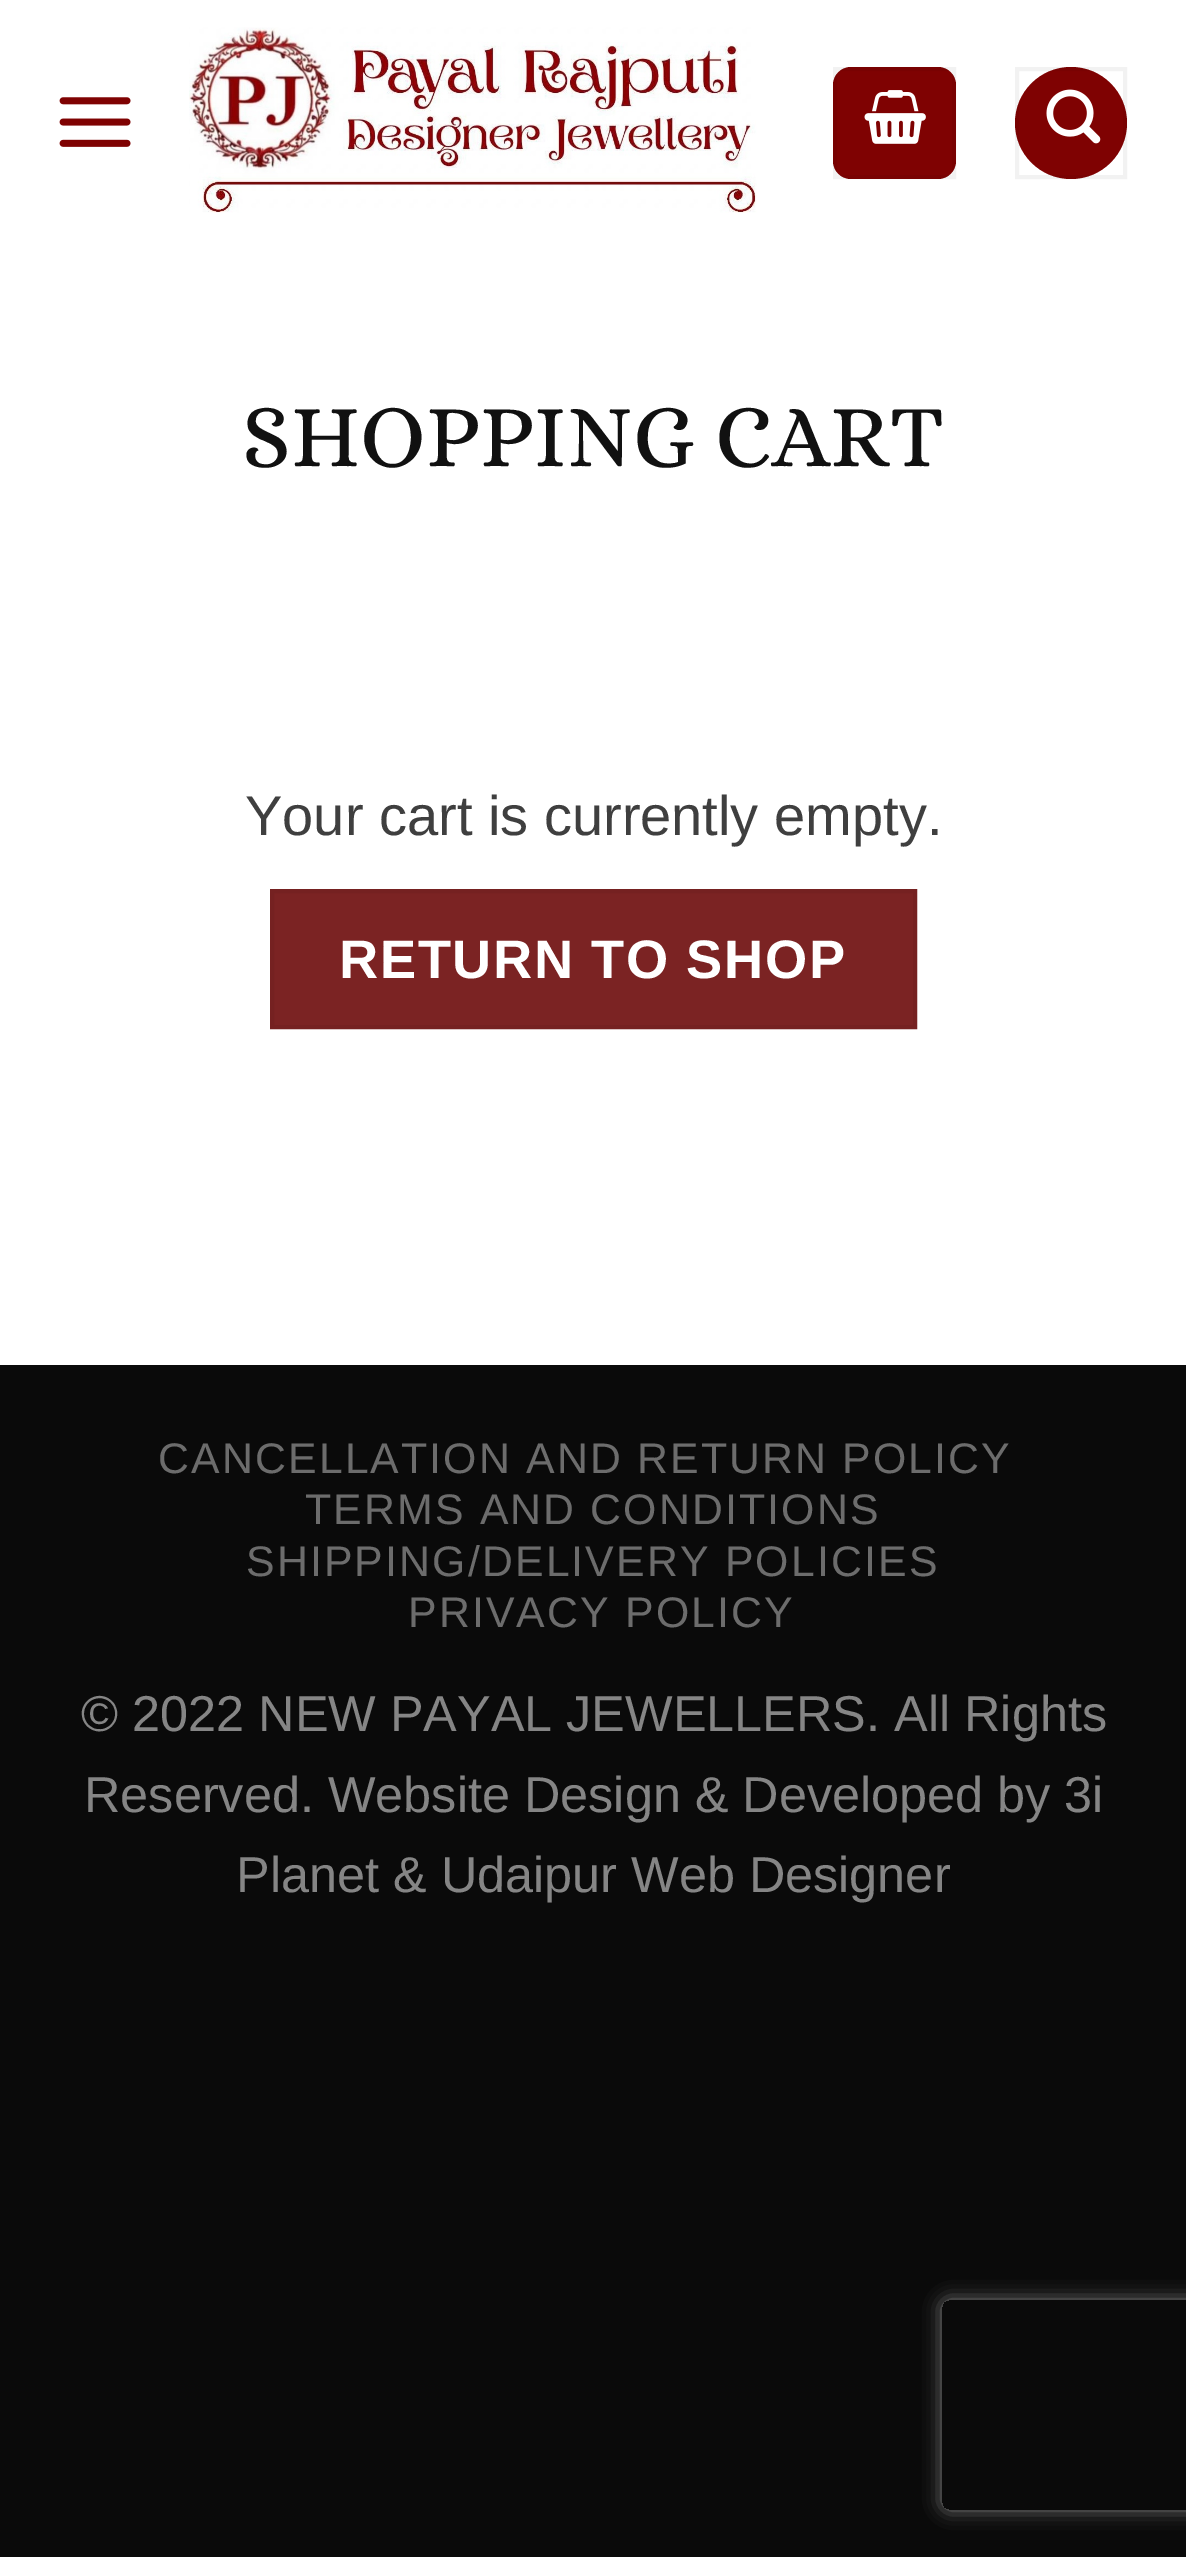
%!PS-Adobe-3.0
%%BoundingBox: 0 0 1186 2557
%%LanguageLevel: 3
%%Pages: 1
%%EndComments
%%BeginProlog
/setink { dup -16 bitshift 255 div exch dup -8 bitshift 255 and 255 div exch 255 and 255 div setrgbcolor } def
/usefont { [ exch dup neg 0 0 3 -1 roll 0 0 ] selectfont } def
/setalpha { dup .setfillconstantalpha .setstrokeconstantalpha } def
/disc { newpath 0 360 arc closepath } def
/rrect { 5 dict begin { /r /h /w /y /x } { exch def } forall
  x r add y moveto x w add y 2 copy h add r arct x w add y h add x 1 index r arct
  x y h add x y r arct x y 2 copy exch w add exch r arct closepath end } def
/softshadow { 12 dict begin { /a /b /q /h /w /y /x } { exch def } forall gsave /was 0 def
  9 -2 -9 { dup b mul 4 div /e exch def 1 sub .425 mul 2.718 exch exp 1 add a .99 .min exch div /now exch def
    1 1 now sub 1 was sub div sub setalpha /was now def
    w h .min e 2 mul add 0 gt { x e sub y e sub w e 2 mul add h e 2 mul add
      q e add b .6 mul add w h .min 2 div e add .min 0 .max rrect fill } if } for grestore end } def
/drawimage { 5 dict begin { /h /w /y /x /name } { exch def } forall
  gsave x y translate w h scale
  w h 8 [w 0 0 h 0 0] name (r) file false 3 colorimage grestore end } def
%%EndProlog
%%BeginSetup
<< /PageSize [1186 2557] /PageUsesTransparency true >> setpagedevice
%%EndSetup
%%Page: 1 1
0 .pushpdf14devicefilter
0 2557 translate 1 -1 scale
4 setmiterlimit
16#0A0A0A setink
0 0 1186 2557 rectfill
16#FFFFFF setink
0 0 1186 1365 rectfill
(img1.raw) 59 97 72 50 drawimage
(img2.raw) 189 27 568 186 drawimage
16#7F0202 setink
833 67 123 112 18 rrect fill
0.05 setalpha
16#000000 setink
4 setlinewidth
835 69 119 108 rectstroke
1 setalpha
(img3.raw) 864 90 62 54 drawimage
16#7F0202 setink
1071 123 56 disc fill
0.05 setalpha
16#000000 setink
1017 69 108 108 rectstroke
1 setalpha
(img4.raw) 1046 89 55 55 drawimage
/Alice-Regular 89.5 usefont
16#111111 setink
242 466 moveto (SHOPPING CART) show
/LiberationSans-Regular 56 usefont
16#3F3F3F setink
245 835 moveto (Your cart is currently empty.) show
16#7B2323 setink
272 891 moveto 915 891 lineto 915 1027 lineto 272 1027 lineto closepath gsave fill grestore
16#752121 setink
stroke
/LiberationSans-Bold 54.25 usefont
16#FFFFFF setink
339 978 moveto 1.6 0 (RETURN TO SHOP) ashow
/LiberationSans-Regular 42.8 usefont
16#6C6C6C setink
158 1473 moveto 2.15 0 (CANCELLATION AND RETURN POLICY) ashow
305 1524 moveto 2.15 0 (TERMS AND CONDITIONS) ashow
246 1576 moveto 2.15 0 (SHIPPING/DELIVERY POLICIES) ashow
408 1627 moveto 2.15 0 (PRIVACY POLICY) ashow
/LiberationSans-Regular 50.4 usefont
16#858585 setink
[
    [(© 2022 NEW PAYAL JEWELLERS. All Rights) 81 1731]
    [(Reserved. Website Design & Developed by) 84 1812]
    [(3i) 1064 1812]
    [(Planet & Udaipur Web Designer) 236 1892]
] { aload pop moveto show } forall
gsave
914 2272 moveto 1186 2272 lineto 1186 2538 lineto 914 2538 lineto closepath 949 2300 moveto 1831 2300 lineto 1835 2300 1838 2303 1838 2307 curveto 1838 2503 lineto 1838 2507 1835 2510 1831 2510 curveto 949 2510 lineto 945 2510 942 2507 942 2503 curveto 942 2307 lineto 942 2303 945 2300 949 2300 curveto closepath eoclip newpath
16#808080 setink
942 2300 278 210 7 9 1 softshadow
grestore
.poppdf14devicefilter showpage
%%EOF
